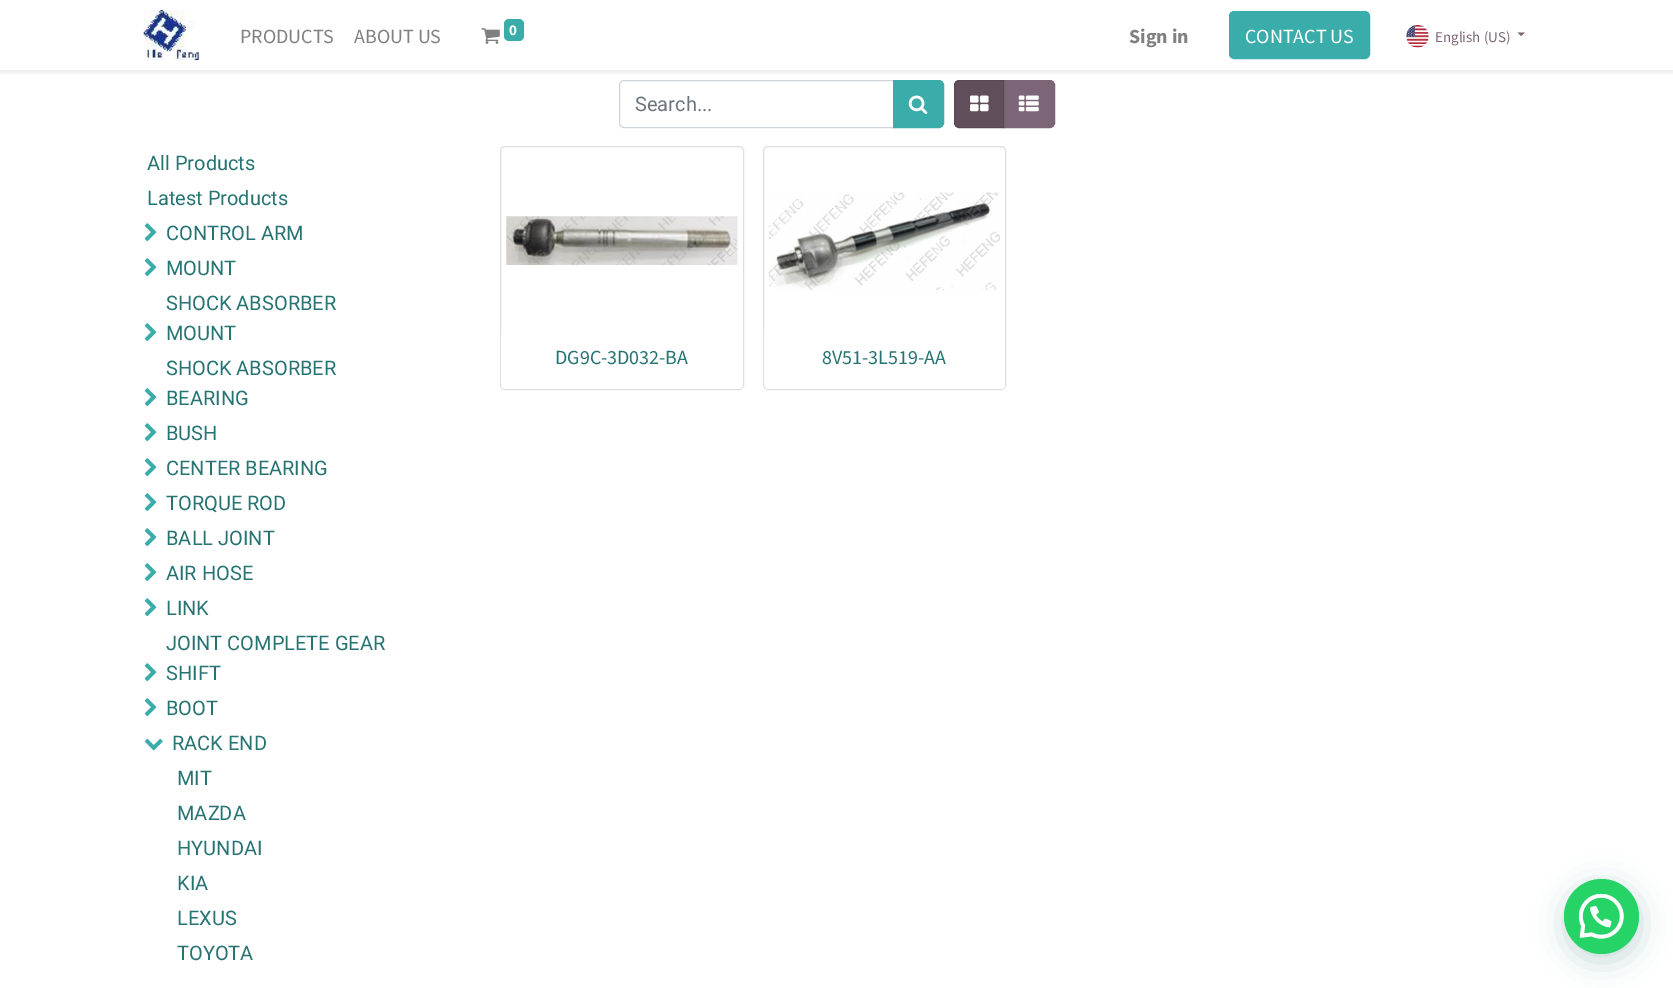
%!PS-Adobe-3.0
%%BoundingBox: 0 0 1673 988
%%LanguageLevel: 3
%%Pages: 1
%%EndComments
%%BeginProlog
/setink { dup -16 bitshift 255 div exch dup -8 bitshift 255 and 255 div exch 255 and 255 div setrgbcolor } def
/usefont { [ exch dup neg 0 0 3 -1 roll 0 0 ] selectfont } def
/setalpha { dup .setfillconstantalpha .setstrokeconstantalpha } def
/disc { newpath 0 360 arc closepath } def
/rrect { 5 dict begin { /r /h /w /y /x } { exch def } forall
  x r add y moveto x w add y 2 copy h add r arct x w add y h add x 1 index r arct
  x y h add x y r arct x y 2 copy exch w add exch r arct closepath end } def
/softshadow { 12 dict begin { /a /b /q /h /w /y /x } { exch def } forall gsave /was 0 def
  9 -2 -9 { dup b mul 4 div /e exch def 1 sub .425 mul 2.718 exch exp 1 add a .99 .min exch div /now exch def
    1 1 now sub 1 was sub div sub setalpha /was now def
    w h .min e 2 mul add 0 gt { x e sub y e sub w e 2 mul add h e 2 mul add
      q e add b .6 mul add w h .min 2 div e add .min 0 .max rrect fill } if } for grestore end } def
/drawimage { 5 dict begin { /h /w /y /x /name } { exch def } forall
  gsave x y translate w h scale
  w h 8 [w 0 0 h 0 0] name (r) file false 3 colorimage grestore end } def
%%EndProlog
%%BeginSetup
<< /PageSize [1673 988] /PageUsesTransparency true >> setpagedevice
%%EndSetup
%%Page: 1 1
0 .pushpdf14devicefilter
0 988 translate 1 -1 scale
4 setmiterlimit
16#FFFFFF setink
0 0 1673 988 rectfill
16#CED4DA setink
624 80.5 moveto 893.5 80.5 lineto 893.5 127.5 lineto 624 127.5 lineto 621.5 127.5 619.5 125.5 619.5 123 curveto 619.5 85 lineto 619.5 82.5 621.5 80.5 624 80.5 curveto closepath stroke
16#3AADAA setink
893.5 80.5 moveto 939 80.5 lineto 941.5 80.5 943.5 82.5 943.5 85 curveto 943.5 123 lineto 943.5 125.5 941.5 127.5 939 127.5 curveto 893.5 127.5 lineto closepath gsave fill grestore
stroke
16#7C6576 setink
1003.5 80.5 moveto 1050 80.5 lineto 1052.5 80.5 1054.5 82.5 1054.5 85 curveto 1054.5 123 lineto 1054.5 125.5 1052.5 127.5 1050 127.5 curveto 1003.5 127.5 lineto closepath gsave fill grestore
stroke
16#604E5B setink
959 80.5 moveto 1003.5 80.5 lineto 1003.5 127.5 lineto 959 127.5 lineto 956.5 127.5 954.5 125.5 954.5 123 curveto 954.5 85 lineto 954.5 82.5 956.5 80.5 959 80.5 curveto closepath gsave fill grestore
16#594954 setink
stroke
gsave
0 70 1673 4 rectclip
16#000000 setink
0 3 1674 70 0 2.5 0.07 softshadow
grestore
(img1.raw) 143 10 57 50 drawimage
/SourceSansPro-Regular 20 usefont
16#808080 setink
240 43 moveto (PRODUCTS) show
354 43 moveto (ABOUT US) show
(img2.raw) 481 28 19 16 drawimage
16#3AADAA setink
504 19 20 22 5 rrect fill
/SourceSansPro-Bold 15 usefont
16#FFFFFF setink
509 35 moveto (0) show
/SourceSansPro-Bold 20 usefont
16#808080 setink
1129 43 moveto (Sign in) show
16#3AADAA setink
1229.5 11.5 140 47 4.5 rrect gsave fill grestore
stroke
/SourceSansPro-Regular 20 usefont
16#FFFFFF setink
1245 43 moveto (CONTACT US) show
(img3.raw) 1406 25 23 23 drawimage
/SourceSansPro-Regular 15 usefont
16#7C6576 setink
1435 42 moveto (English \(US\)) show
1517.5 32.5 moveto 1525 32.5 lineto 1521 36 lineto closepath fill
/Roboto-Regular 20 usefont
16#6C757D setink
635 111 moveto (Search...) show
(img4.raw) 908 95 20 20 drawimage
(img5.raw) 970 95 19 17 drawimage
(img6.raw) 1018 95 21 17 drawimage
16#267372 setink
147 170 moveto (All Products) show
147 205 moveto (Latest Products) show
(img7.raw) 144 223 13 19 drawimage
166 240 moveto (CONTROL ARM) show
(img7.raw) 144 258 13 19 drawimage
166 275 moveto (MOUNT) show
(img7.raw) 144 323 13 19 drawimage
166 310 moveto (SHOCK ABSORBER) show
166 340 moveto (MOUNT) show
(img7.raw) 144 388 13 19 drawimage
166 375 moveto (SHOCK ABSORBER) show
166 405 moveto (BEARING) show
(img7.raw) 144 423 13 19 drawimage
166 440 moveto (BUSH) show
(img7.raw) 144 458 13 19 drawimage
166 475 moveto (CENTER BEARING) show
(img7.raw) 144 493 13 19 drawimage
166 510 moveto (TORQUE ROD) show
(img7.raw) 144 528 13 19 drawimage
166 545 moveto (BALL JOINT) show
(img7.raw) 144 563 13 19 drawimage
166 580 moveto (AIR HOSE) show
(img7.raw) 144 598 13 19 drawimage
166 615 moveto (LINK) show
(img7.raw) 144 663 13 19 drawimage
166 650 moveto (JOINT COMPLETE GEAR) show
166 680 moveto (SHIFT) show
(img7.raw) 144 698 13 19 drawimage
166 715 moveto (BOOT) show
(img8.raw) 144 738 19 13 drawimage
[
    [(RACK END) 172 750]
    [(MIT) 177 785]
    [(MAZDA) 177 820]
    [(HYUNDAI) 177 855]
    [(KIA) 177 890]
    [(LEXUS) 177 925]
    [(TOYOTA) 177 960]
] { aload pop moveto show } forall
16#DFDFDF setink
500.5 146.5 243 243 4.5 rrect stroke
(img9.raw) 506 216 232 49 drawimage
0.9 setalpha
16#FFFFFF setink
501 335 moveto 743 335 lineto 743 385 lineto 743 387 741 389 739 389 curveto 505 389 lineto 503 389 501 387 501 385 curveto closepath fill
/SourceSansPro-Regular 20 usefont
1 setalpha
16#267372 setink
555 364 moveto (DG9C-3D032-BA) show
16#DFDFDF setink
763.5 146.5 242 243 4.5 rrect stroke
(img10.raw) 768 192 232 98 drawimage
0.9 setalpha
16#FFFFFF setink
764 335 moveto 1005 335 lineto 1005 385 lineto 1005 387 1003 389 1001 389 curveto 768 389 lineto 766 389 764 387 764 385 curveto closepath fill
1 setalpha
16#267372 setink
822 364 moveto (8V51-3L519-AA) show
16#075E54 setink
1565 886 75 75 37.5 15 0.24 softshadow
16#25D366 setink
1601.5 916.5 37.5 disc fill
(img11.raw) 1579 894 45 45 drawimage
.poppdf14devicefilter showpage
%%EOF
